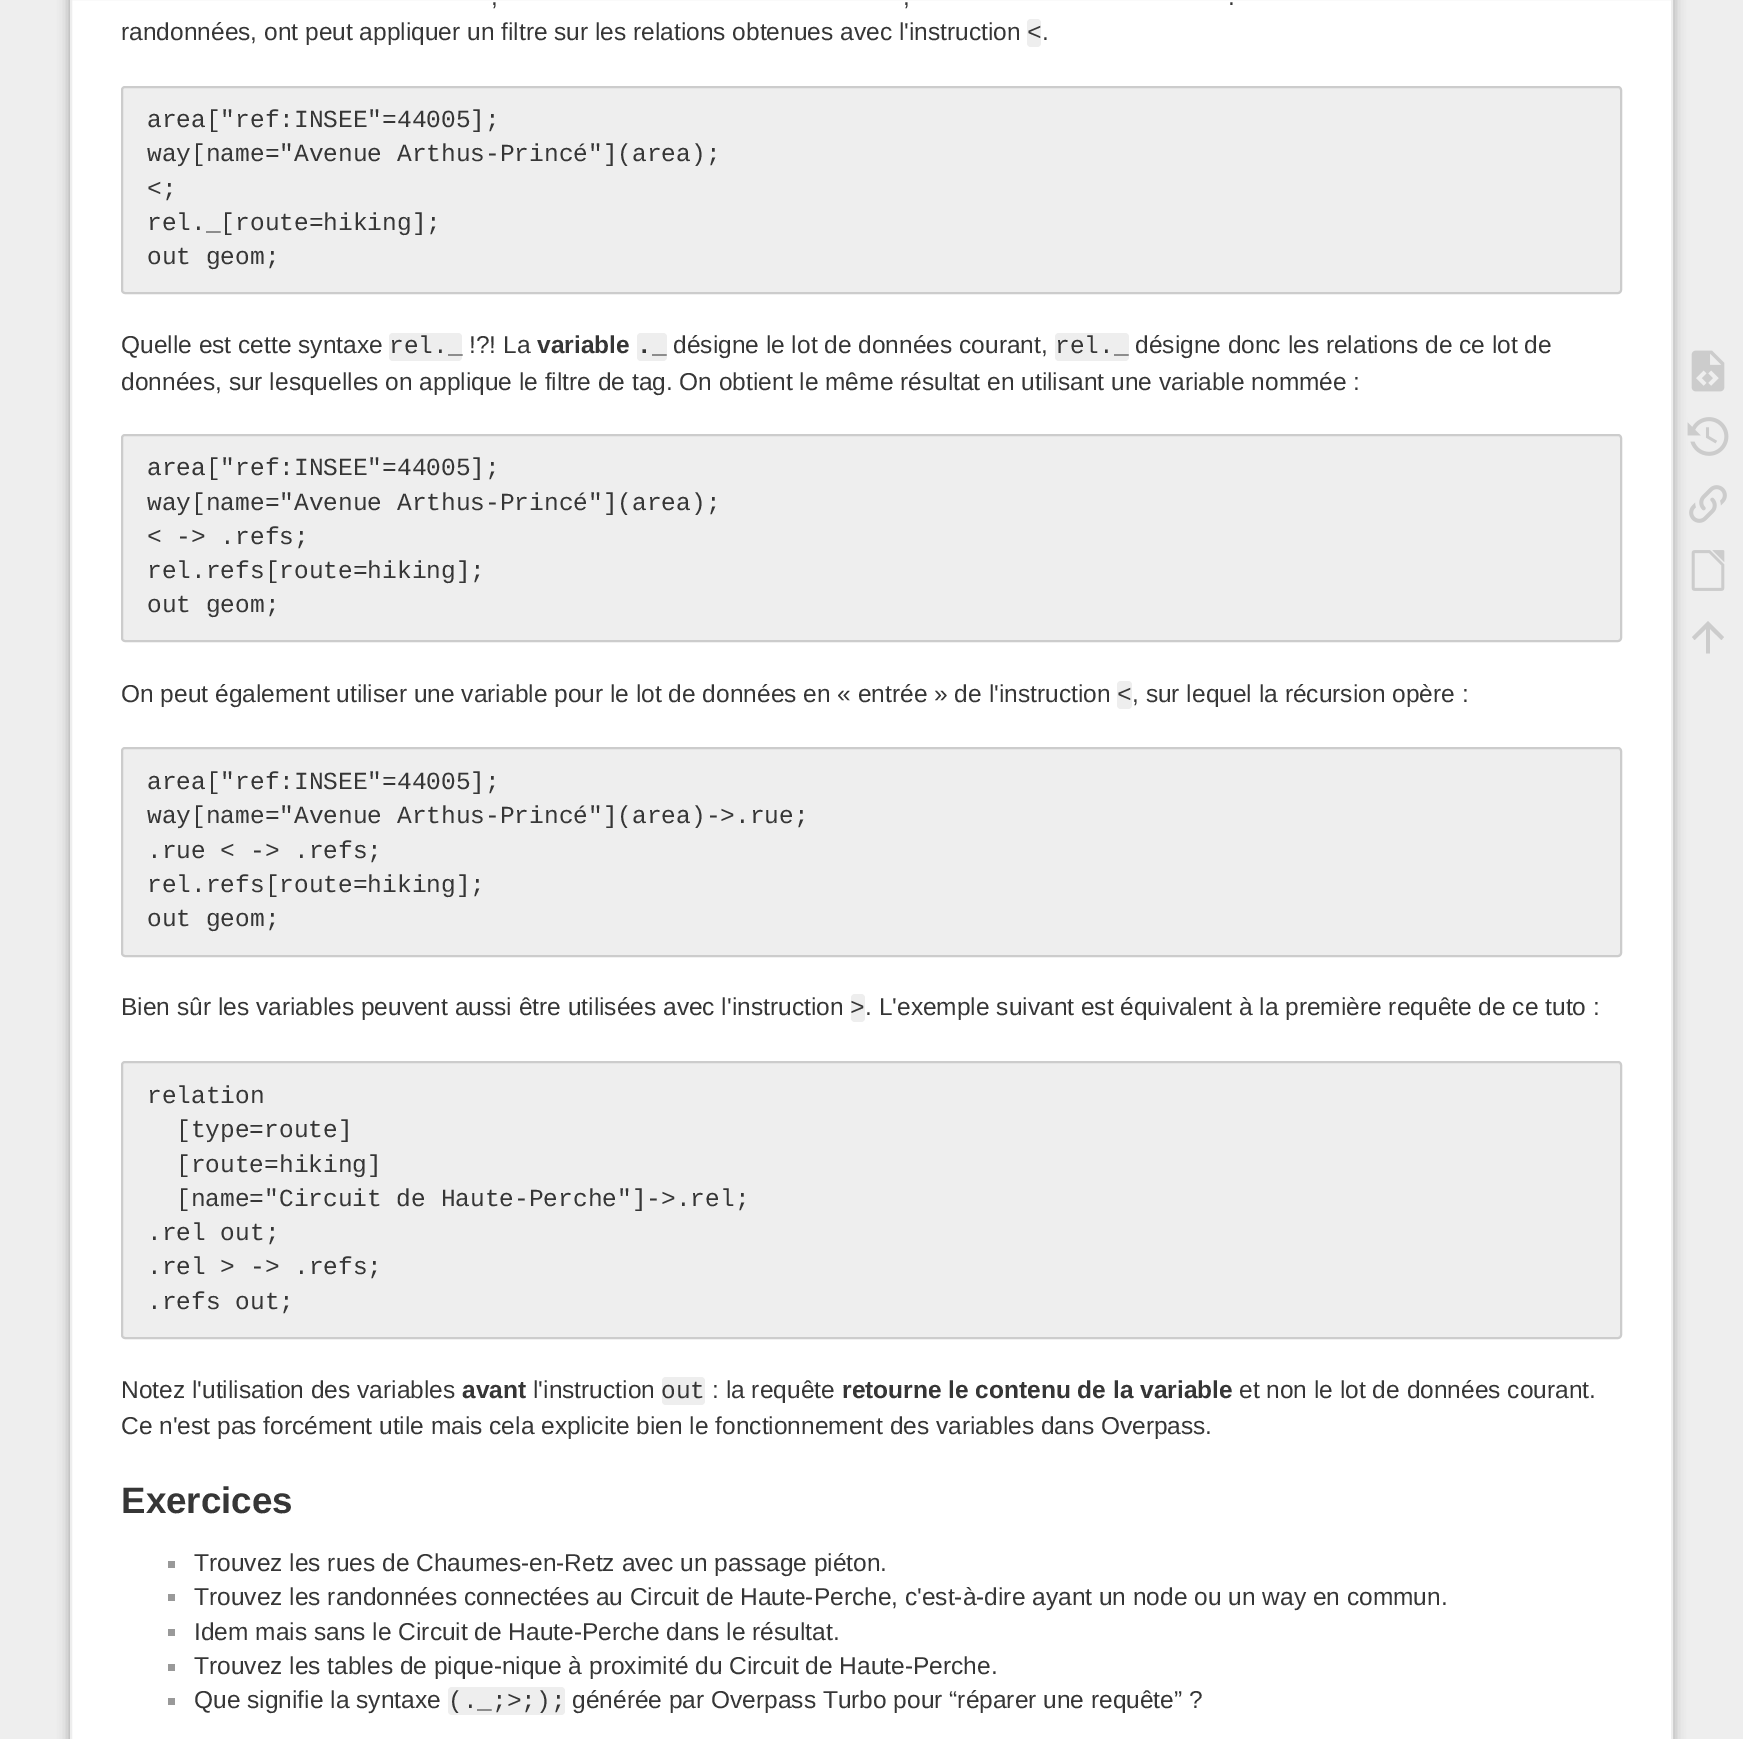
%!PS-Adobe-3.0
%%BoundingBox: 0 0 1743 1739
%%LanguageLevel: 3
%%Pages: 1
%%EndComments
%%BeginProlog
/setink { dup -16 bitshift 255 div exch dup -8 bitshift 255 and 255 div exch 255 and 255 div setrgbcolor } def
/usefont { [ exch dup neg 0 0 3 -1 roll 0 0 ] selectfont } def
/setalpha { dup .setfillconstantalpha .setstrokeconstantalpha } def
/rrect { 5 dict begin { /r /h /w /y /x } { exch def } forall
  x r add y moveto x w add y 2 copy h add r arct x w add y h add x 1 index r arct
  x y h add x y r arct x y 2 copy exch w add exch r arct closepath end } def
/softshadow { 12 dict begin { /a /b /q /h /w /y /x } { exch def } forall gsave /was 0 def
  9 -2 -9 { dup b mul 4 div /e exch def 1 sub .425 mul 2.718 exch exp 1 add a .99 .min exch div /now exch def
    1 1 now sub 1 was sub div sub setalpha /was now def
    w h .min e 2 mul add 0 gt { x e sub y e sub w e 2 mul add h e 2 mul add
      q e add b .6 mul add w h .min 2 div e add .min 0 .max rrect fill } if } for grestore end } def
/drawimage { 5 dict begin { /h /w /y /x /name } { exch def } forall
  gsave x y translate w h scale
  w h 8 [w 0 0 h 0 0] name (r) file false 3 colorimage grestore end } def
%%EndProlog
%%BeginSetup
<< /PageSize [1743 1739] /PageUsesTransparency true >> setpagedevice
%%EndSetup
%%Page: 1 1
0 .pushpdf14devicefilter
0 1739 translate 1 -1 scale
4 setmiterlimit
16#EEEEEE setink
0 0 1743 1739 rectfill
16#999999 setink
70 -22 1603 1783 4 6 1 softshadow
16#FFFFFF setink
71 -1 moveto 1672 -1 lineto 1672 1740 lineto 71 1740 lineto closepath gsave fill grestore
16#EEEEEE setink
2 setlinewidth
stroke
/LiberationSans-Regular 24.5 usefont
16#363636 setink
[
    [(,) 491 5]
    [(,) 903 5]
    [(.) 1228 5]
    [(randonnées, ont peut appliquer un filtre sur les relations obtenues avec l'instruction) 121 40]
] { aload pop moveto show } forall
16#EEEEEE setink
1027 19 14 28 4 rrect fill
/LiberationMono-Regular 24.5 usefont
16#363636 setink
1027 40 moveto (<) show
/LiberationSans-Regular 24.5 usefont
1042 40 moveto (.) show
16#EEEEEE setink
122 87 1499 206 3 rrect gsave fill grestore
16#CCCCCC setink
stroke
/LiberationMono-Regular 24.5 usefont
16#363636 setink
[
    [(area["ref:INSEE"=44005];) 147 127]
    [(way[name="Avenue Arthus-Princé"]\(area\);) 147 161]
    [(<;) 147 196]
    [(rel._[route=hiking];) 147 230]
    [(out geom;) 147 264]
] { aload pop moveto show } forall
/LiberationSans-Regular 24.5 usefont
121 353 moveto (Quelle est cette syntaxe) show
16#EEEEEE setink
389 333 73 28 4 rrect fill
/LiberationMono-Regular 24.5 usefont
16#363636 setink
389 353 moveto (rel._) show
/LiberationSans-Regular 24.5 usefont
469 353 moveto (!?! La) show
/LiberationSans-Bold 24.5 usefont
537 353 moveto (variable) show
16#EEEEEE setink
637 333 30 28 4 rrect fill
/LiberationMono-Bold 24.5 usefont
16#363636 setink
637 353 moveto (._) show
/LiberationSans-Regular 24.5 usefont
673 353 moveto (désigne le lot de données courant,) show
16#EEEEEE setink
1055 333 74 28 4 rrect fill
/LiberationMono-Regular 24.5 usefont
16#363636 setink
1055 353 moveto (rel._) show
/LiberationSans-Regular 24.5 usefont
1135 353 moveto (désigne donc les relations de ce lot de) show
121 390 moveto (données, sur lesquelles on applique le filtre de tag. On obtient le même résultat en utilisant une variable nommée :) show
16#EEEEEE setink
122 435 1499 206 3 rrect gsave fill grestore
16#CCCCCC setink
stroke
/LiberationMono-Regular 24.5 usefont
16#363636 setink
[
    [(area["ref:INSEE"=44005];) 147 475]
    [(way[name="Avenue Arthus-Princé"]\(area\);) 147 510]
    [(< -> .refs;) 147 544]
    [(rel.refs[route=hiking];) 147 578]
    [(out geom;) 147 612]
] { aload pop moveto show } forall
/LiberationSans-Regular 24.5 usefont
121 702 moveto (On peut également utiliser une variable pour le lot de données en « entrée » de l'instruction) show
16#EEEEEE setink
1117 681 15 28 4 rrect fill
/LiberationMono-Regular 24.5 usefont
16#363636 setink
1117 702 moveto (<) show
/LiberationSans-Regular 24.5 usefont
1132 702 moveto (, sur lequel la récursion opère :) show
16#EEEEEE setink
122 748 1499 208 3 rrect gsave fill grestore
16#CCCCCC setink
stroke
/LiberationMono-Regular 24.5 usefont
16#363636 setink
[
    [(area["ref:INSEE"=44005];) 147 789]
    [(way[name="Avenue Arthus-Princé"]\(area\)->.rue;) 147 823]
    [(.rue < -> .refs;) 147 858]
    [(rel.refs[route=hiking];) 147 892]
    [(out geom;) 147 926]
] { aload pop moveto show } forall
/LiberationSans-Regular 24.5 usefont
121 1015 moveto (Bien sûr les variables peuvent aussi être utilisées avec l'instruction) show
16#EEEEEE setink
851 994 14 28 4 rrect fill
/LiberationMono-Regular 24.5 usefont
16#363636 setink
850 1015 moveto (>) show
/LiberationSans-Regular 24.5 usefont
865 1015 moveto (. L'exemple suivant est équivalent à la première requête de ce tuto :) show
16#EEEEEE setink
122 1062 1499 276 3 rrect gsave fill grestore
16#CCCCCC setink
stroke
/LiberationMono-Regular 24.5 usefont
16#363636 setink
[
    [(relation) 147 1103]
    [([type=route]) 176 1137]
    [([route=hiking]) 176 1172]
    [([name="Circuit de Haute-Perche"]->.rel;) 176 1206]
    [(.rel out;) 147 1240]
    [(.rel > -> .refs;) 147 1274]
    [(.refs out;) 147 1309]
] { aload pop moveto show } forall
/LiberationSans-Regular 24.5 usefont
121 1398 moveto (Notez l'utilisation des variables) show
/LiberationSans-Bold 24.5 usefont
462 1398 moveto (avant) show
/LiberationSans-Regular 24.5 usefont
533 1398 moveto (l'instruction) show
16#EEEEEE setink
662 1377 43 28 4 rrect fill
/LiberationMono-Regular 24.5 usefont
16#363636 setink
661 1398 moveto (out) show
/LiberationSans-Regular 24.5 usefont
712 1398 moveto (: la requête) show
/LiberationSans-Bold 24.5 usefont
842 1398 moveto (retourne le contenu de la variable) show
/LiberationSans-Regular 24.5 usefont
1239 1398 moveto (et non le lot de données courant.) show
121 1434 moveto (Ce n'est pas forcément utile mais cela explicite bien le fonctionnement des variables dans Overpass.) show
/LiberationSans-Bold 36.75 usefont
121 1513 moveto (Exercices) show
16#999999 setink
168 1561 7 7 rectfill
/LiberationSans-Regular 24.5 usefont
16#363636 setink
194 1571 moveto (Trouvez les rues de Chaumes-en-Retz avec un passage piéton.) show
16#999999 setink
168 1594 7 7 rectfill
16#363636 setink
194 1605 moveto (Trouvez les randonnées connectées au Circuit de Haute-Perche, c'est-à-dire ayant un node ou un way en commun.) show
16#999999 setink
168 1629 7 7 rectfill
16#363636 setink
194 1640 moveto (Idem mais sans le Circuit de Haute-Perche dans le résultat.) show
16#999999 setink
168 1664 7 7 rectfill
16#363636 setink
194 1674 moveto (Trouvez les tables de pique-nique à proximité du Circuit de Haute-Perche.) show
16#999999 setink
168 1698 7 7 rectfill
16#363636 setink
194 1708 moveto (Que signifie la syntaxe) show
16#EEEEEE setink
448 1687 117 28 4 rrect fill
/LiberationMono-Regular 24.5 usefont
16#363636 setink
448 1708 moveto (\(._;>;\);) show
/LiberationSans-Regular 24.5 usefont
572 1708 moveto (générée par Overpass Turbo pour “réparer une requête” ?) show
(img1.raw) 1691 350 34 42 drawimage
(img2.raw) 1687 417 42 39 drawimage
(img3.raw) 1689 485 38 38 drawimage
(img4.raw) 1691 550 34 41 drawimage
16#CCCCCC setink
1710 653.5 moveto 1706 653.5 lineto 1706 629 lineto 1694.5 640 lineto 1692 637 lineto 1708 621 lineto 1724 637 lineto 1721.5 640 lineto 1710 629 lineto closepath fill
.poppdf14devicefilter showpage
%%EOF
